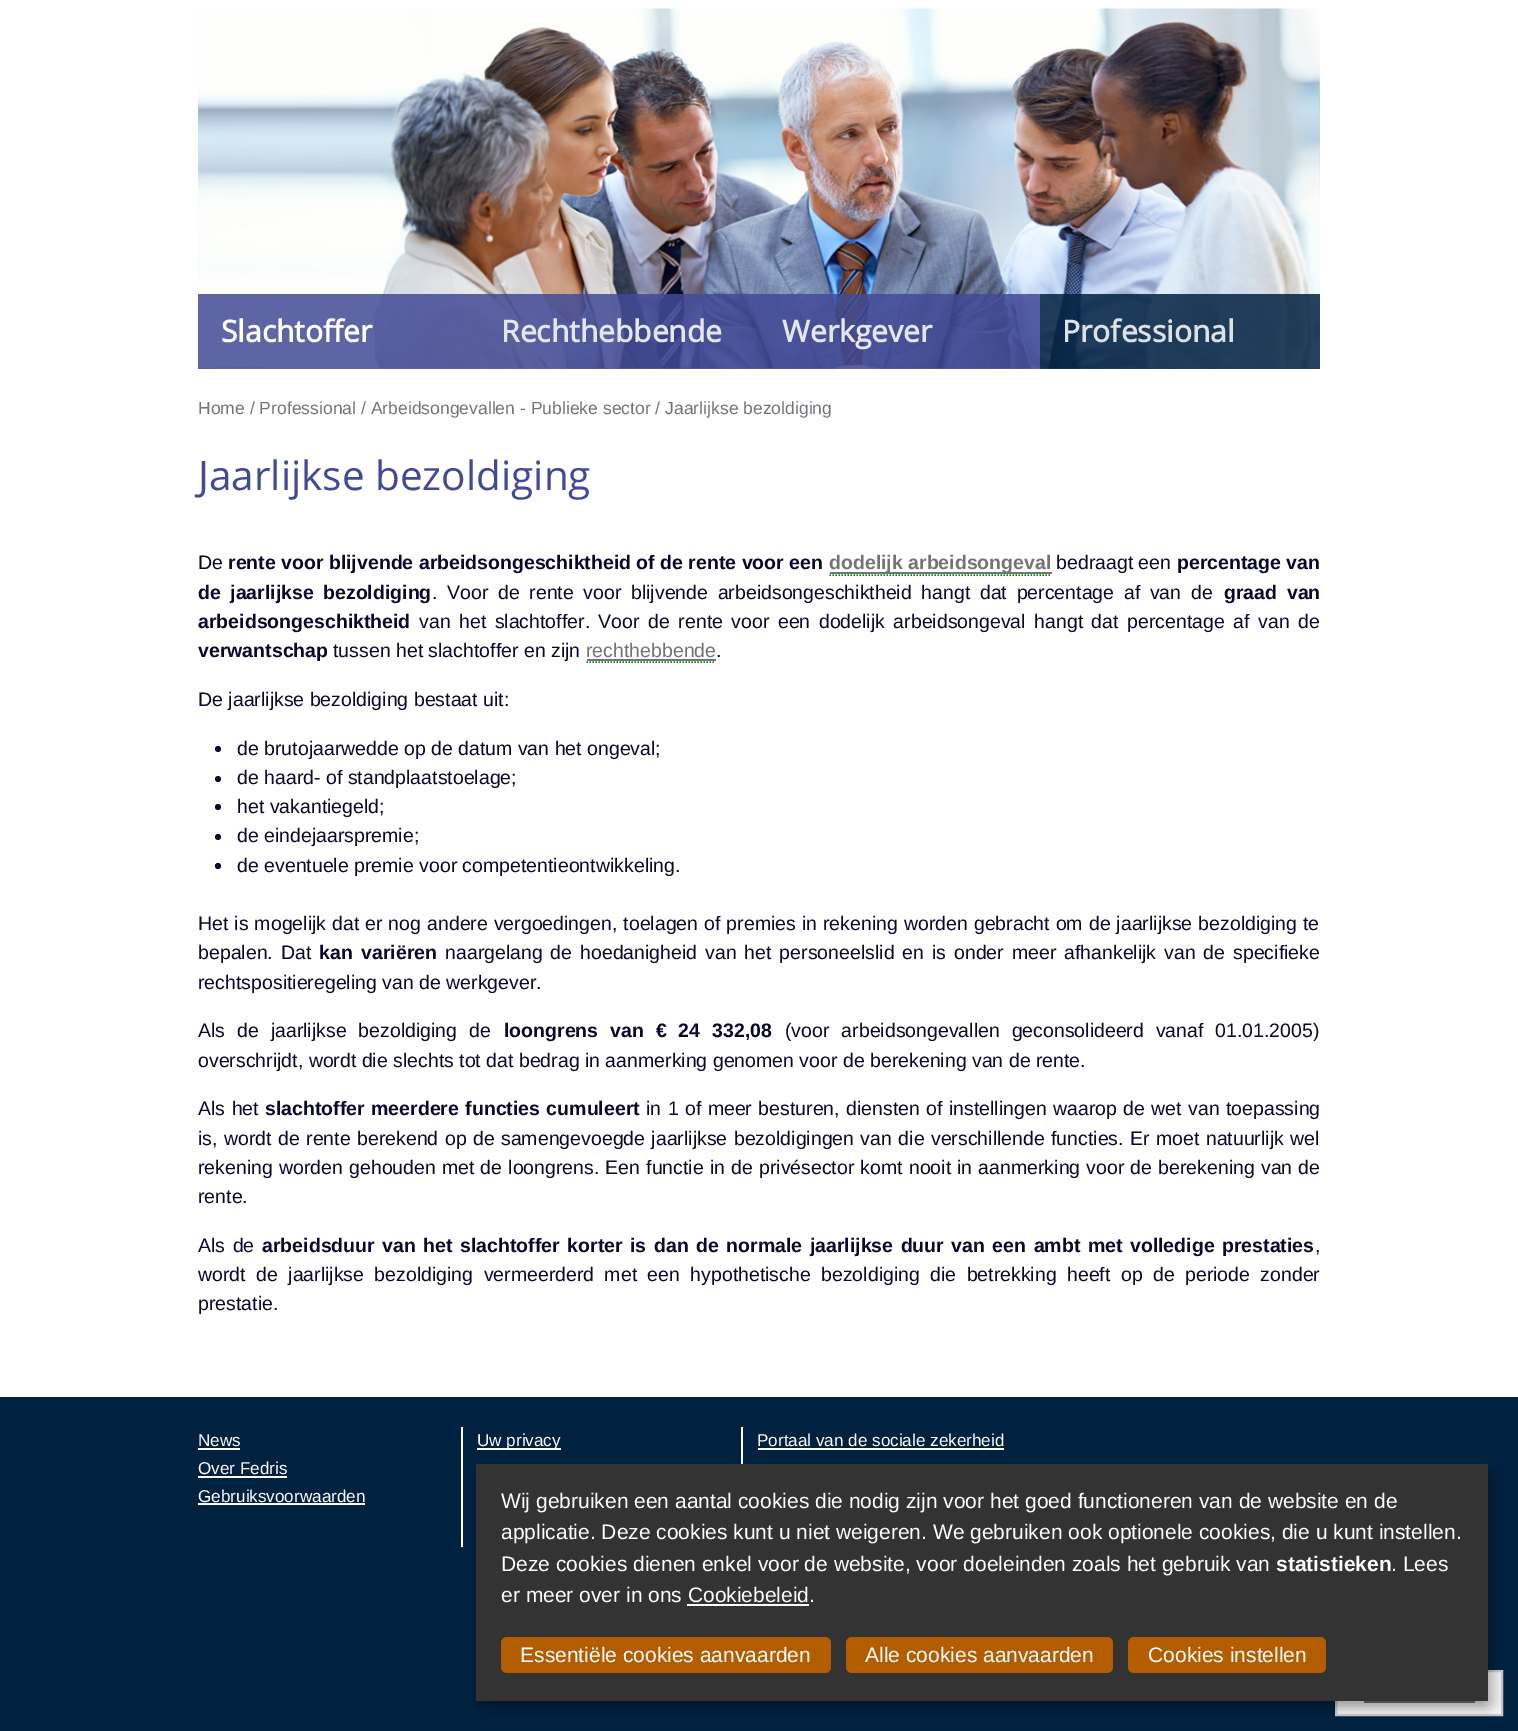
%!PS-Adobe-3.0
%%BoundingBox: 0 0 1518 1731
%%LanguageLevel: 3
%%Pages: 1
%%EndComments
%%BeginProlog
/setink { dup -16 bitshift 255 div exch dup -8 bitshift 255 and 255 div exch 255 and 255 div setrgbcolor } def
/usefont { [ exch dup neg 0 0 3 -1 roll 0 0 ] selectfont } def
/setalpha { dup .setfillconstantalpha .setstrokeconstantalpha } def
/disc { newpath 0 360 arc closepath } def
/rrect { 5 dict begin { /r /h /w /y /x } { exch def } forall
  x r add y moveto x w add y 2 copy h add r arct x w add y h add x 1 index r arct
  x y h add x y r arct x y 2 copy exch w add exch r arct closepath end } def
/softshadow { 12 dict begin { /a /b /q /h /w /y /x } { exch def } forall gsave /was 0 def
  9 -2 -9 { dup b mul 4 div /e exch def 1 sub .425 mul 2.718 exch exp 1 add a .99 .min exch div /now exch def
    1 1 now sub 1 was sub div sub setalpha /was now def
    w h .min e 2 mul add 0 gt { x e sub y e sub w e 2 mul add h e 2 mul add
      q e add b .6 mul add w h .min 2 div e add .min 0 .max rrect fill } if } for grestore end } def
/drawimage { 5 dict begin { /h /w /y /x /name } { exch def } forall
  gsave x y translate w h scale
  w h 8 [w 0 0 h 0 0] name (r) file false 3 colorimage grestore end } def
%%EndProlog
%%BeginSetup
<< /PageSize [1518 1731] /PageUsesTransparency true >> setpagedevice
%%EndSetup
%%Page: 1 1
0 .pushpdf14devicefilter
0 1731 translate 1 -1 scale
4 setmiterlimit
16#012141 setink
0 0 1518 1731 rectfill
16#FFFFFF setink
0 0 1518 1397 rectfill
(img1.raw) 198 8 1122 361 drawimage
0.85 setalpha
16#424A96 setink
198 294 281 75 rectfill
/OpenSans-Bold 30 usefont
1 setalpha
16#FFFFFF setink
221 342 moveto (Slachtoffer) show
0.85 setalpha
16#424A96 setink
479 294 280 75 rectfill
1 setalpha
16#E4E6F0 setink
501 342 moveto (Rechthebbende) show
0.85 setalpha
16#424A96 setink
759 294 281 75 rectfill
1 setalpha
16#E4E6F0 setink
782 342 moveto (Werkgever) show
0.85 setalpha
16#012141 setink
1040 294 280 75 rectfill
1 setalpha
16#DDE1E6 setink
1062 342 moveto (Professional) show
/LiberationSans-Regular 17.55 usefont
16#737379 setink
198 414 moveto (Home / Professional / Arbeidsongevallen - Publieke sector / Jaarlijkse bezoldiging) show
/OpenSans-Regular 40.5 usefont
16#424A96 setink
198 490 moveto (Jaarlijkse bezoldiging) show
/LiberationSans-Regular 19.5 usefont
16#09072C setink
198 569 moveto (De) show
/LiberationSans-Bold 19.5 usefont
228 569 moveto (rente voor blijvende arbeidsongeschiktheid of de rente voor een) show
16#737379 setink
830 572 222 2 rectfill
829 569 moveto (dodelijk arbeidsongeval) show
16#008800 setink
1.5 setlinewidth
[1.5 1.5] 0 setdash
829.5 575 moveto 1051.5 575 lineto stroke
/LiberationSans-Regular 19.5 usefont
16#09072C setink
1056 569 moveto (bedraagt een) show
/LiberationSans-Bold 19.5 usefont
1177 569 moveto (percentage van) show
198 599 moveto 4 0 32 (de jaarlijkse bezoldiging) widthshow
/LiberationSans-Regular 19.5 usefont
432 599 moveto 4.25 0 32 (. Voor de rente voor blijvende arbeidsongeschiktheid hangt dat percentage af van de) widthshow
/LiberationSans-Bold 19.5 usefont
1224 599 moveto 4.25 0 32 (graad van) widthshow
198 628 moveto (arbeidsongeschiktheid) show
/LiberationSans-Regular 19.5 usefont
419 628 moveto 3.1 0 32 (van het slachtoffer. Voor de rente voor een dodelijk arbeidsongeval hangt dat percentage af van de) widthshow
/LiberationSans-Bold 19.5 usefont
198 657 moveto (verwantschap) show
/LiberationSans-Regular 19.5 usefont
333 657 moveto (tussen het slachtoffer en zijn) show
16#737379 setink
586 657 moveto (rechthebbende) show
16#008800 setink
586.5 662 moveto 715.5 662 lineto stroke
16#737379 setink
587 659 129 2 rectfill
16#09072C setink
716 657 moveto (.) show
198 706 moveto (De jaarlijkse bezoldiging bestaat uit:) show
218 749 3 disc fill
237 755 moveto (de brutojaarwedde op de datum van het ongeval;) show
218 779 3 disc fill
237 784 moveto (de haard- of standplaatstoelage;) show
218 807 3 disc fill
237 813 moveto (het vakantiegeld;) show
218 837 3 disc fill
237 842 moveto (de eindejaarspremie;) show
218 866 3 disc fill
237 872 moveto (de eventuele premie voor competentieontwikkeling.) show
198 930 moveto 0.6 0 32 (Het is mogelijk dat er nog andere vergoedingen, toelagen of premies in rekening worden gebracht om de jaarlijkse bezoldiging te) widthshow
198 959 moveto 3 0 32 (bepalen. Dat) widthshow
/LiberationSans-Bold 19.5 usefont
319 959 moveto 3 0 32 (kan variëren) widthshow
/LiberationSans-Regular 19.5 usefont
445 959 moveto 2.5 0 32 (naargelang de hoedanigheid van het personeelslid en is onder meer afhankelijk van de specifieke) widthshow
198 989 moveto (rechtspositieregeling van de werkgever.) show
198 1037 moveto 6.5 0 32 (Als de jaarlijkse bezoldiging de) widthshow
/LiberationSans-Bold 19.5 usefont
504 1037 moveto 6.5 0 32 (loongrens van € 24 332,08) widthshow
/LiberationSans-Regular 19.5 usefont
785 1037 moveto 6.5 0 32 (\(voor arbeidsongevallen geconsolideerd vanaf 01.01.2005\)) widthshow
198 1067 moveto (overschrijdt, wordt die slechts tot dat bedrag in aanmerking genomen voor de berekening van de rente.) show
198 1115 moveto 1 0 32 (Als het) widthshow
/LiberationSans-Bold 19.5 usefont
265 1115 moveto 1 0 32 (slachtoffer meerdere functies cumuleert) widthshow
/LiberationSans-Regular 19.5 usefont
646 1115 moveto 1 0 32 (in 1 of meer besturen, diensten of instellingen waarop de wet van toepassing) widthshow
198 1145 moveto 1 0 32 (is, wordt de rente berekend op de samengevoegde jaarlijkse bezoldigingen van die verschillende functies. Er moet natuurlijk wel) widthshow
198 1174 moveto 0.7 0 32 (rekening worden gehouden met de loongrens. Een functie in de privésector komt nooit in aanmerking voor de berekening van de) widthshow
198 1203 moveto (rente.) show
198 1252 moveto 2.1 0 32 (Als de) widthshow
/LiberationSans-Bold 19.5 usefont
262 1252 moveto 2.1 0 32 (arbeidsduur van het slachtoffer korter is dan de normale jaarlijkse duur van een ambt met volledige prestaties) widthshow
/LiberationSans-Regular 19.5 usefont
1315 1252 moveto (,) show
198 1281 moveto 5 0 32 (wordt de jaarlijkse bezoldiging vermeerderd met een hypothetische bezoldiging die betrekking heeft op de periode zonder) widthshow
198 1310 moveto (prestatie.) show
/LiberationSans-Regular 17.1 usefont
16#FFFFFF setink
198 1446 moveto (News) show
198 1448 42 2 rectfill
198 1474 moveto (Over Fedris) show
198 1476 89 2 rectfill
198 1502 moveto (Gebruiksvoorwaarden) show
[
    [198 1503 167 2 16#FFFFFF]
    [461 1427 2 120 16#FFFFFF]
    [477 1448 84 2 16#FFFFFF]
] { aload pop setink rectfill } forall
477 1446 moveto (Uw privacy) show
741 1427 2 37 rectfill
757 1446 moveto (Portaal van de sociale zekerheid) show
758 1448 246 2 rectfill
16#F7F7F7 setink
1336 1671 moveto 1502 1671 lineto 1502 1715 lineto 1336 1715 lineto closepath gsave fill grestore
16#CCCCCC setink
2 setlinewidth
[] 0 setdash
stroke
16#737379 setink
1364 1701 111 2 rectfill
16#000000 setink
483 1472 1013 237 6 7.5 0.19 softshadow
476 1470 1012 237 6 4.5 0.2 softshadow
16#333333 setink
476 1464 1012 237 rectfill
/LiberationSans-Regular 21 usefont
16#FFFFFF setink
[
    [(Wij gebruiken een aantal cookies die nodig zijn voor het goed functioneren van de website en de) 501 1508]
    [(applicatie. Deze cookies kunt u niet weigeren. We gebruiken ook optionele cookies, die u kunt instellen.) 501 1539]
    [(Deze cookies dienen enkel voor de website, voor doeleinden zoals het gebruik van) 501 1571]
] { aload pop moveto show } forall
/LiberationSans-Bold 21 usefont
1276 1571 moveto (statistieken) show
/LiberationSans-Regular 21 usefont
1391 1571 moveto (. Lees) show
501 1602 moveto (er meer over in ons Cookiebeleid.) show
687 1604 122 2 rectfill
16#B35C00 setink
501 1637 330 36 6 rrect fill
16#FFFFFF setink
520 1662 moveto (Essentiële cookies aanvaarden) show
16#B35C00 setink
846 1637 267 36 6 rrect fill
16#FFFFFF setink
865 1662 moveto (Alle cookies aanvaarden) show
16#B35C00 setink
1128 1637 198 36 6 rrect fill
16#FFFFFF setink
1148 1662 moveto (Cookies instellen) show
.poppdf14devicefilter showpage
%%EOF
